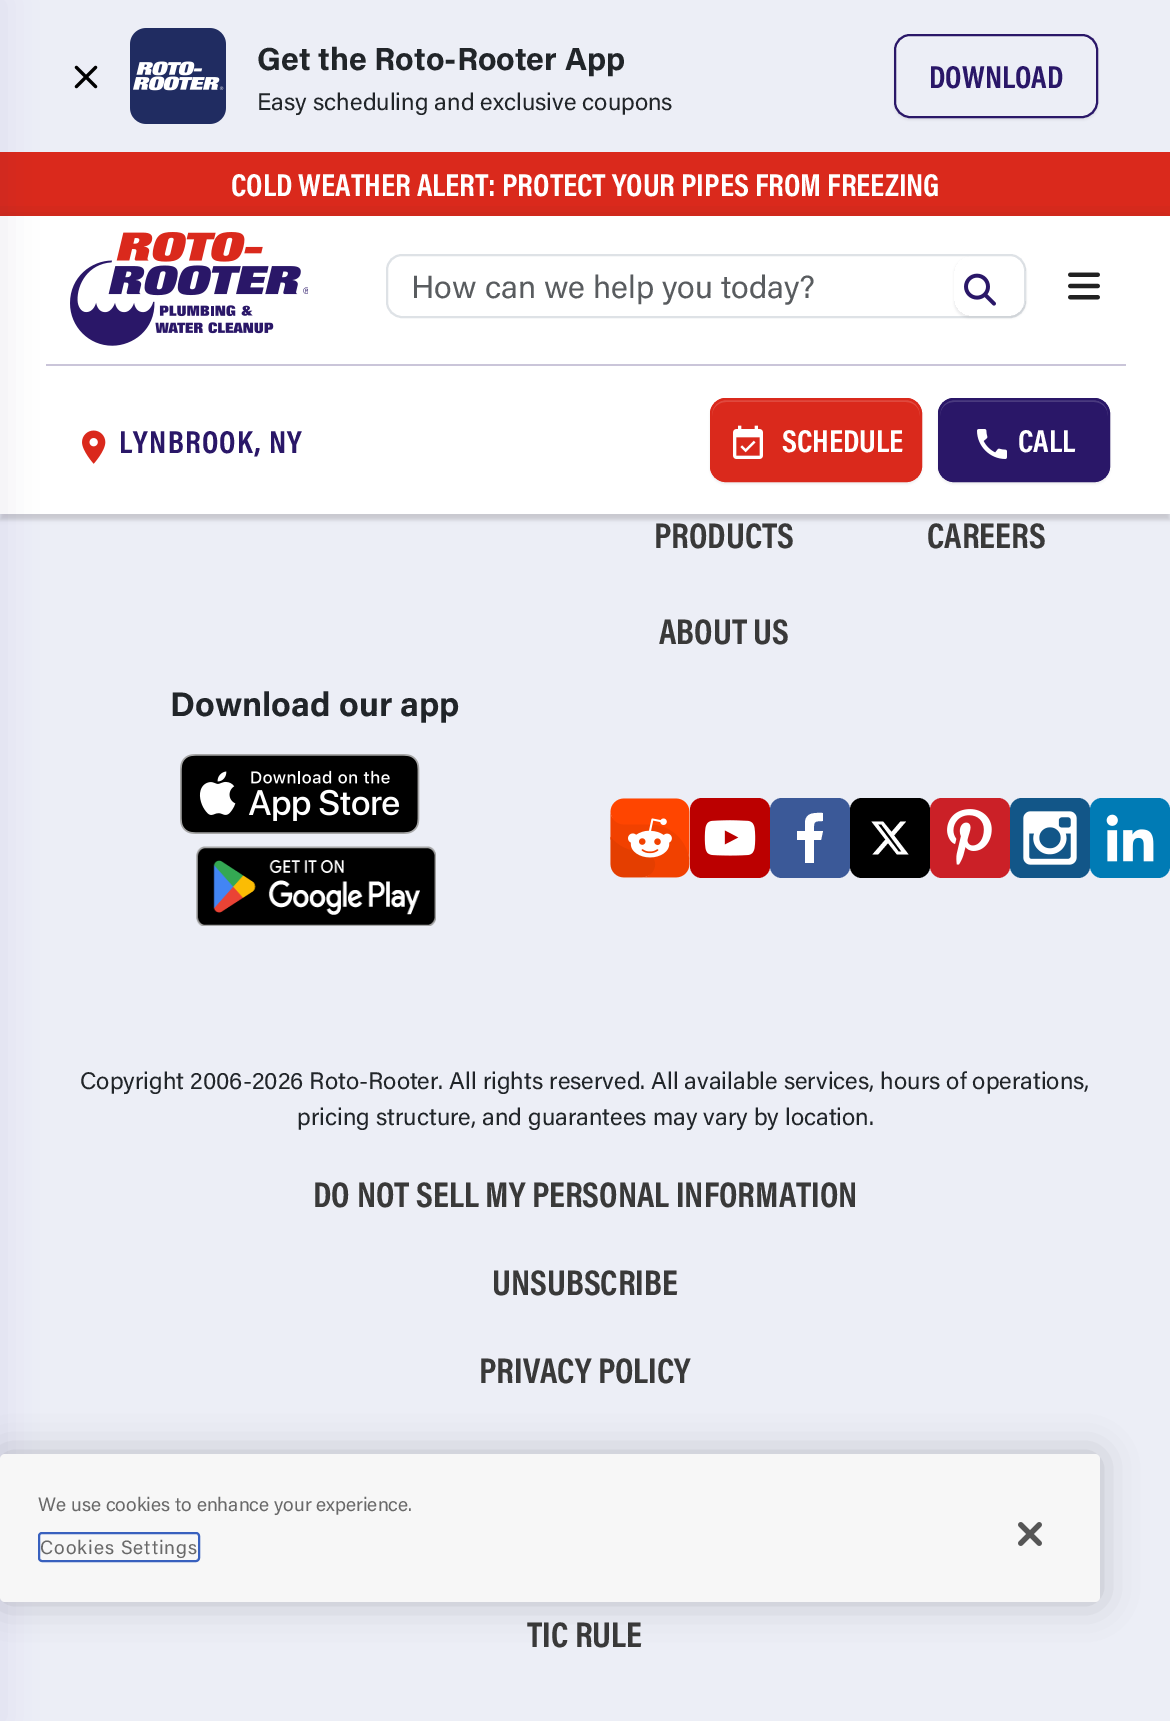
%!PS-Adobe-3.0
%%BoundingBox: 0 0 1170 1721
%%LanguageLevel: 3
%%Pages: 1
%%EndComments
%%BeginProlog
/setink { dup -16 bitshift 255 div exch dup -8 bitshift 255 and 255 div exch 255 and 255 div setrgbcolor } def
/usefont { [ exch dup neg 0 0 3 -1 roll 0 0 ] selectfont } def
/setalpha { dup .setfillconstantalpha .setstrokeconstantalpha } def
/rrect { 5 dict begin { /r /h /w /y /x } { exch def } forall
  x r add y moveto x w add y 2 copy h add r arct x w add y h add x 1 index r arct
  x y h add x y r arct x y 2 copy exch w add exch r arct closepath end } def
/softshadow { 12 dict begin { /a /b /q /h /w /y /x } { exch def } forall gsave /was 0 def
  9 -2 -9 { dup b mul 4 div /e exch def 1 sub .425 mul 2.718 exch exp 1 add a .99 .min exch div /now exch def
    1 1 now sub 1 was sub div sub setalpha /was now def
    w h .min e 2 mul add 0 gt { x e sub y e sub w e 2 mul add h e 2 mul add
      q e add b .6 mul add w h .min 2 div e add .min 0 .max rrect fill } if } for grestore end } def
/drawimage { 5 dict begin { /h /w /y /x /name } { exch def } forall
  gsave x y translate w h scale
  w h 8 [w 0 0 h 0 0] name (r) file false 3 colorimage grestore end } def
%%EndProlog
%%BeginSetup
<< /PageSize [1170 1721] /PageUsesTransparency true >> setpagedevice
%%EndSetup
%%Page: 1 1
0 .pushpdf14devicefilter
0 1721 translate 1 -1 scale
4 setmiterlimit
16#ECEEF6 setink
0 0 1170 1721 rectfill
16#FFFFFF setink
0 216 1170 148 rectfill
(img1.raw) 74 65 24 24 drawimage
(img2.raw) 130 28 96 96 drawimage
/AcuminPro-Bold 32 usefont
16#212529 setink
257 70 moveto (Get the Roto-Rooter App) show
/AcuminPro-Regular 24 usefont
257 110 moveto (Easy scheduling and exclusive coupons) show
gsave
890 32 moveto 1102 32 lineto 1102 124 lineto 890 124 lineto closepath 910 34 moveto 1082 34 lineto 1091 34 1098 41 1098 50 curveto 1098 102 lineto 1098 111 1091 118 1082 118 curveto 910 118 lineto 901 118 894 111 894 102 curveto 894 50 lineto 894 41 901 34 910 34 curveto closepath eoclip newpath
894 36 204 84 16 1 0.07 softshadow
grestore
16#EFF1F7 setink
910 38 moveto 1082 38 lineto 1090 38 1096 44 1096 52 curveto 1096 50 lineto 1096 42 1090 36 1082 36 curveto 910 36 lineto 902 36 896 42 896 50 curveto 896 52 lineto 896 44 902 38 910 38 curveto closepath fill
16#2A1768 setink
2 setlinewidth
895 35 202 82 15 rrect stroke
/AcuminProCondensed-Bold 32 usefont
929 88 moveto (DOWNLOAD) show
16#DA291C setink
0 152 1170 64 rectfill
gsave
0 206 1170 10 rectclip
16#151515 setink
0 224 1170 148 0 16 0.15 softshadow
grestore
16#FFFFFF setink
231 196 moveto (COLD WEATHER ALERT: PROTECT YOUR PIPES FROM FREEZING) show
16#393939 setink
0 370 1170 150 0 2 0.2 softshadow
16#FFFFFF setink
0 364 1170 150 rectfill
16#CAC5D9 setink
46 364 1080 2 rectfill
16#2C217C setink
-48 0 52 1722 0 16 0.08 softshadow
(img3.raw) 70 232 238 114 drawimage
16#DEE2E6 setink
387 255 638 62 15 rrect stroke
/AcuminPro-Regular 32 usefont
16#595C5F setink
411 298 moveto (How can we help you today?) show
gsave
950 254 moveto 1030 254 lineto 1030 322 lineto 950 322 lineto closepath 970 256 moveto 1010 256 lineto 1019 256 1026 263 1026 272 curveto 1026 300 lineto 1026 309 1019 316 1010 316 curveto 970 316 lineto 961 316 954 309 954 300 curveto 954 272 lineto 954 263 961 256 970 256 curveto closepath eoclip newpath
16#212529 setink
954 258 72 60 16 1 0.07 softshadow
grestore
(img4.raw) 964 273 32 33 drawimage
(img5.raw) 1068 272 32 28 drawimage
(img6.raw) 82 430 24 34 drawimage
/AcuminProCondensed-Bold 32 usefont
16#2A1768 setink
119 453 moveto 1.25 0 (LYNBROOK, NY) ashow
16#212529 setink
710 400 212 84 16 1 0.07 softshadow
16#DA291C setink
710 398 212 84 16 rrect fill
16#E0493E setink
726 402 moveto 906 402 lineto 914 402 920 408 920 416 curveto 920 414 lineto 920 406 914 400 906 400 curveto 726 400 lineto 718 400 712 406 712 414 curveto 712 416 lineto 712 408 718 402 726 402 curveto closepath fill
16#DA291C setink
711 399 210 82 15 rrect stroke
(img7.raw) 733 425 30 34 drawimage
16#FFFFFF setink
782 452 moveto (SCHEDULE) show
16#212529 setink
938 400 172 84 16 1 0.07 softshadow
16#2A1768 setink
938 398 172 84 16 rrect fill
16#4A3A7F setink
954 402 moveto 1094 402 lineto 1102 402 1108 408 1108 416 curveto 1108 395 1085 400 1071 400 curveto 977 400 lineto 963 400 940 395 940 416 curveto 940 408 946 402 954 402 curveto closepath fill
16#2A1768 setink
939 399 170 82 15 rrect stroke
(img8.raw) 977 429 30 30 drawimage
16#FFFFFF setink
1018 452 moveto (CALL) show
/AcuminProCondensed-Bold 36 usefont
16#393939 setink
[
    [(PRODUCTS) 654 548]
    [(CAREERS) 927 548]
    [(ABOUT US) 659 644]
] { aload pop moveto show } forall
/AcuminPro-Bold 34 usefont
16#212529 setink
170 716 moveto (Download our app) show
(img9.raw) 180 754 240 80 drawimage
(img10.raw) 196 846 240 80 drawimage
(img11.raw) 610 798 80 80 drawimage
16#BB0000 setink
690 798 80 80 12 rrect fill
(img12.raw) 704 820 52 36 drawimage
16#3B5998 setink
770 798 80 80 12 rrect fill
16#FFFFFF setink
805 863 moveto 805 840 lineto 797 840 lineto 797 831 lineto 805 831 lineto 805 822 lineto 806 812 815 813 823 813 curveto 823 821 lineto 813 821 814 822 814 831 curveto 823 831 lineto 821 840 lineto 814 840 lineto 814 863 lineto closepath fill
16#000000 setink
850 798 80 80 12 rrect fill
16#FFFFFF setink
900.5 821.5 moveto 906 821.5 lineto 894 835.5 lineto 908.5 854.5 lineto 897 854.5 lineto 888 843 lineto 878 854.5 lineto 872.5 854.5 lineto 885.5 839.5 lineto 871.5 821.5 lineto 883 821.5 lineto 891.5 832 lineto closepath 898.5 851.5 moveto 901.5 851.5 lineto 881.5 824.5 lineto 878 824.5 lineto closepath fill
16#CB2027 setink
930 798 80 80 12 rrect fill
(img13.raw) 947 809 45 56 drawimage
16#125688 setink
1010 798 80 80 12 rrect fill
(img14.raw) 1023 811 54 54 drawimage
16#007BB5 setink
1090 798 80 80 12 rrect fill
(img15.raw) 1106 814 48 48 drawimage
/AcuminPro-Regular 24 usefont
16#212529 setink
80 1089 moveto (Copyright 2006-2026 Roto-Rooter. All rights reserved. All available services, hours of operations,) show
297 1125 moveto (pricing structure, and guarantees may vary by location.) show
/AcuminProCondensed-Bold 36 usefont
16#393939 setink
[
    [(DO NOT SELL MY PERSONAL INFORMATION) 313 1207]
    [(UNSUBSCRIBE) 492 1295]
    [(PRIVACY POLICY) 479 1383]
    [(TIC RULE) 527 1647]
] { aload pop moveto show } forall
16#000000 setink
0 1454 1100 148 5 18 0.2 softshadow
16#F7F7F7 setink
0 1454 1100 148 5 rrect fill
/AcuminPro-Regular 19.25 usefont
16#696969 setink
38 1511 moveto (We use cookies to enhance your experience.) show
(img16.raw) 1018 1522 24 24 drawimage
16#3860BE setink
39 1533 160 28 3 rrect stroke
16#696969 setink
40 1554 moveto 1 0 (Cookies Settings) ashow
.poppdf14devicefilter showpage
%%EOF
